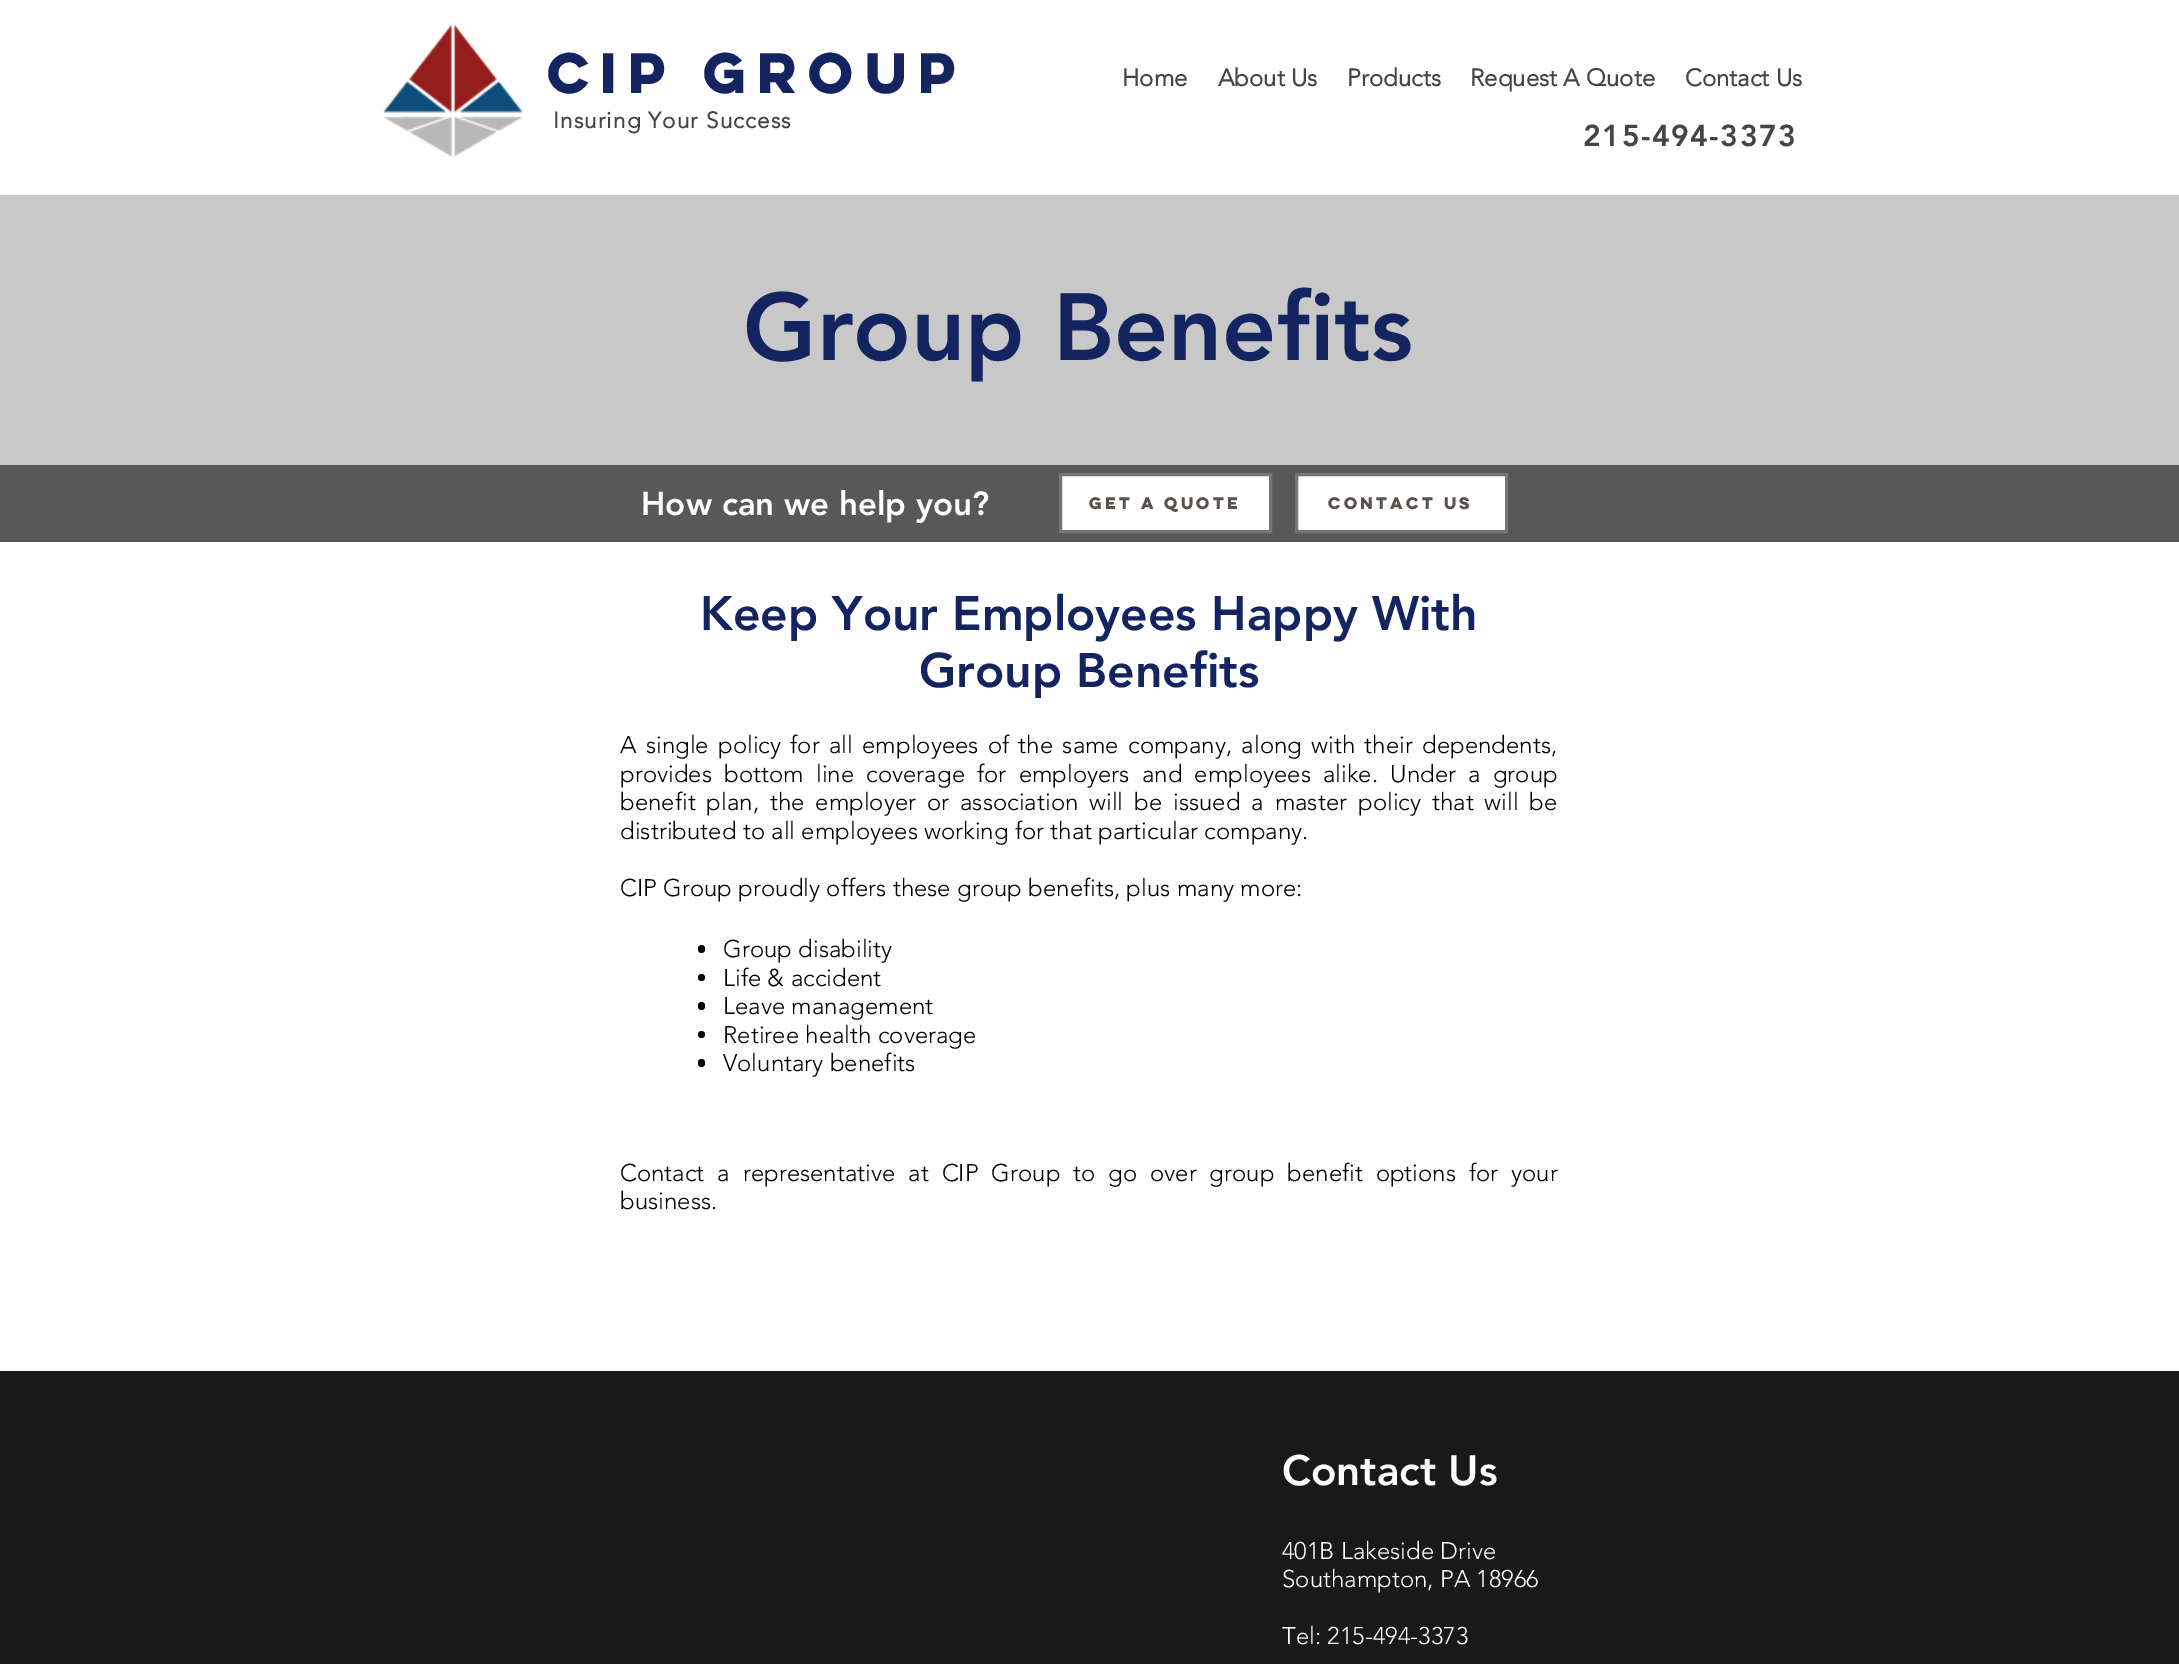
%!PS-Adobe-3.0
%%BoundingBox: 0 0 2179 1664
%%LanguageLevel: 3
%%Pages: 1
%%EndComments
%%BeginProlog
/setink { dup -16 bitshift 255 div exch dup -8 bitshift 255 and 255 div exch 255 and 255 div setrgbcolor } def
/usefont { [ exch dup neg 0 0 3 -1 roll 0 0 ] selectfont } def
/disc { newpath 0 360 arc closepath } def
/rrect { 5 dict begin { /r /h /w /y /x } { exch def } forall
  x r add y moveto x w add y 2 copy h add r arct x w add y h add x 1 index r arct
  x y h add x y r arct x y 2 copy exch w add exch r arct closepath end } def
/drawimage { 5 dict begin { /h /w /y /x /name } { exch def } forall
  gsave x y translate w h scale
  w h 8 [w 0 0 h 0 0] name (r) file false 3 colorimage grestore end } def
%%EndProlog
%%BeginSetup
<< /PageSize [2179 1664] >> setpagedevice
%%EndSetup
%%Page: 1 1
0 1664 translate 1 -1 scale
4 setmiterlimit
16#FFFFFF setink
0 0 2179 1664 rectfill
(img1.raw) 383 25 140 132 drawimage
/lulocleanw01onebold-Bold 51 usefont
16#132460 setink
547 93 moveto (CIP Group) show
/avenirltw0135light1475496-Bold 24 usefont
16#454545 setink
[
    [(Home) 1122 86]
    [(About Us) 1218 86]
    [(Products) 1347 86]
    [(Request A Quote) 1470 86]
    [(Contact Us) 1685 86]
] { aload pop moveto show } forall
/avenirltw0135light1475496-Bold 22.5 usefont
553 128 moveto 1.1 0 (Insuring Your Success) ashow
/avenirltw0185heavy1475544-Black 30 usefont
1583 146 moveto 1.5 0 (215-494-3373) ashow
16#C8C8C8 setink
0 195 2179 270 rectfill
/avenirltw0185heavy1475544-Black 94.5 usefont
16#132460 setink
743 360 moveto (Group Benefits) show
16#585858 setink
0 465 2179 77 rectfill
/avenirltw0185heavy1475544-Black 33 usefont
16#FFFFFF setink
641 515 moveto (How can we help you?) show
1060.5 474.5 moveto 1270.5 474.5 lineto 1270.5 531.5 lineto 1060.5 531.5 lineto closepath gsave fill grestore
16#7B736F setink
3 setlinewidth
stroke
/lulocleanw01onebold-Bold 15 usefont
16#59514D setink
1089 509 moveto (Get a Quote) show
16#FFFFFF setink
1296.5 474.5 moveto 1506.5 474.5 lineto 1506.5 531.5 lineto 1296.5 531.5 lineto closepath gsave fill grestore
16#7B736F setink
stroke
16#59514D setink
1328 509 moveto (Contact Us) show
/avenirltw0185heavy1475544-Black 48 usefont
16#132460 setink
700 630 moveto (Keep Your Employees Happy With) show
919 687 moveto (Group Benefits) show
/avenirltw0135light1475496-Light 24 usefont
16#000000 setink
620 753 moveto 3 0 32 (A single policy for all employees of the same company, along with their dependents,) widthshow
620 782 moveto 5.9 0 32 (provides bottom line coverage for employers and employees alike. Under a group) widthshow
620 810 moveto 4.6 0 32 (benefit plan, the employer or association will be issued a master policy that will be) widthshow
620 839 moveto (distributed to all employees working for that particular company.) show
620 896 moveto (CIP Group proudly offers these group benefits, plus many more:) show
698 945 7 8 3.5 rrect fill
723 957 moveto (Group disability) show
701.5 977.5 3.5 disc fill
723 986 moveto (Life & accident) show
698 1002 7 8 3.5 rrect fill
723 1014 moveto (Leave management) show
701.5 1034.5 3.5 disc fill
723 1043 moveto (Retiree health coverage) show
698 1059 7 8 3.5 rrect fill
723 1071 moveto (Voluntary benefits) show
620 1181 moveto 6.6 0 32 (Contact a representative at CIP Group to go over group benefit options for your) widthshow
620 1209 moveto (business.) show
16#1A1919 setink
0 1371 2179 293 rectfill
/avenirltw0185heavy1475544-Black 42 usefont
16#FFFFFF setink
1282 1485 moveto (Contact Us) show
/avenirltw0135light1475496-Light 24 usefont
[
    [(401B Lakeside Drive) 1282 1559]
    [(Southampton, PA 18966) 1282 1587]
    [(Tel: 215-494-3373) 1282 1644]
] { aload pop moveto show } forall
showpage
%%EOF
